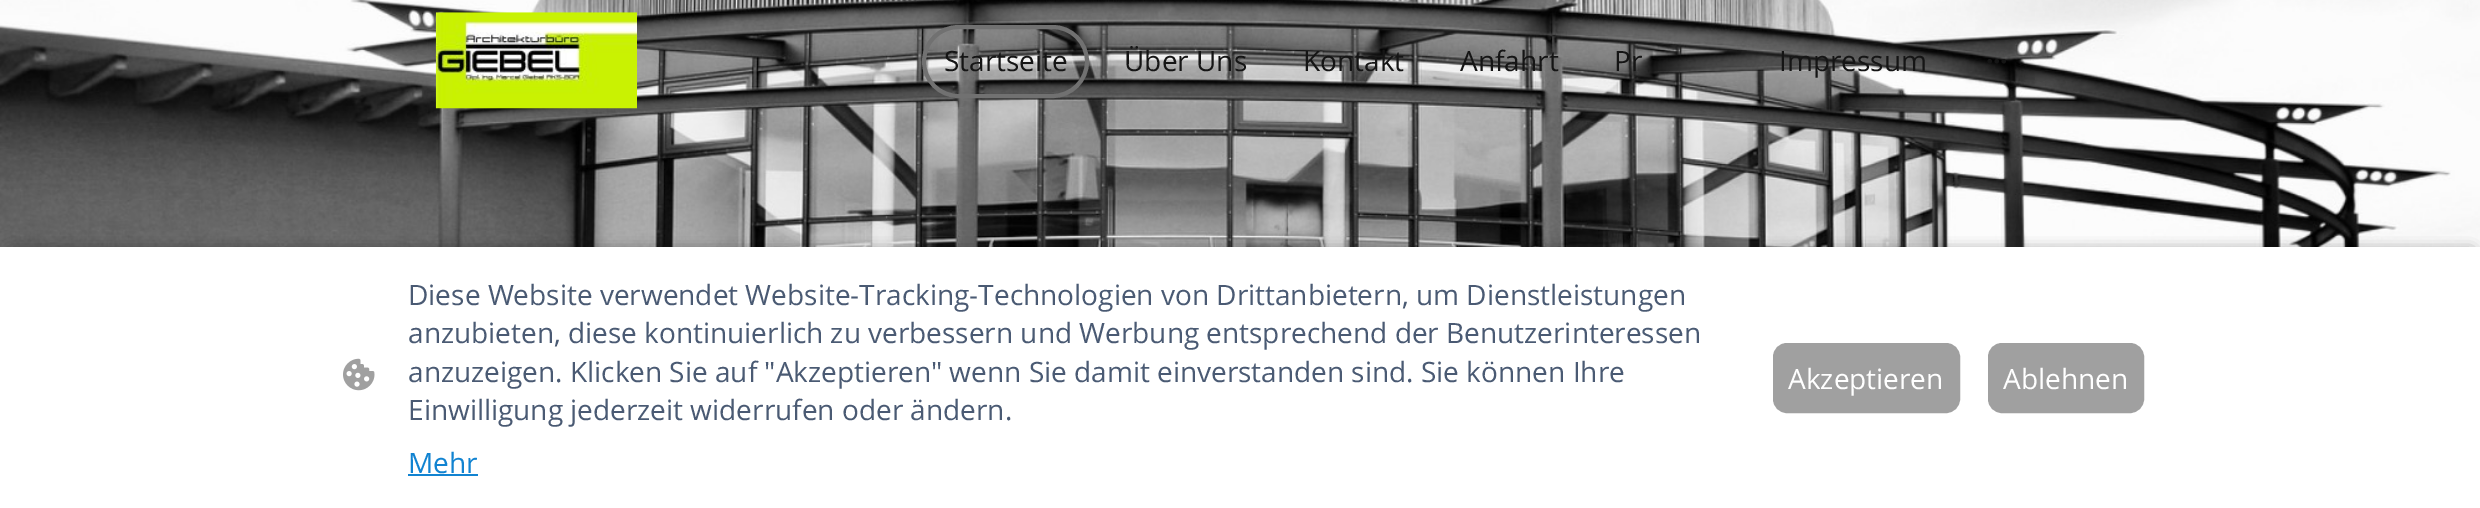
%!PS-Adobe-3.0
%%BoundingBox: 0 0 2480 508
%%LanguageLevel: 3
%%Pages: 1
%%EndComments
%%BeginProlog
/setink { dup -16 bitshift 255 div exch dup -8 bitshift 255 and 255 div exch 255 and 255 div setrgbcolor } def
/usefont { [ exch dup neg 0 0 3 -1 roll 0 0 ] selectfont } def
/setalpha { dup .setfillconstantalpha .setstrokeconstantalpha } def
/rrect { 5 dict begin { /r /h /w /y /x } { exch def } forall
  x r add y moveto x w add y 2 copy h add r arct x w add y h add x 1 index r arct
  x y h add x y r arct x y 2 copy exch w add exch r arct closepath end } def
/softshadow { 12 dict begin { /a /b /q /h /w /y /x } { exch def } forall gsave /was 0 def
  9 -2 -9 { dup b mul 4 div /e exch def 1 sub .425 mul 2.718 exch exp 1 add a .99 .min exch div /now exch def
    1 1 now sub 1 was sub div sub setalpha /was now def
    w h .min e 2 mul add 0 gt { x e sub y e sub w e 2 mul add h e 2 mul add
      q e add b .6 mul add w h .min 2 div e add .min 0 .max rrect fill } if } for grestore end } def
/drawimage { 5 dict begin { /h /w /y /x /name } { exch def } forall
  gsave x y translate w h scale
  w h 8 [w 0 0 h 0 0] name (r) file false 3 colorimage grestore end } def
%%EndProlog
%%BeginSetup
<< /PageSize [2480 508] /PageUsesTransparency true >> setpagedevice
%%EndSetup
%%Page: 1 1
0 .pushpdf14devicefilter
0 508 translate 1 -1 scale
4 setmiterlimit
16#FFFFFF setink
0 0 2480 508 rectfill
(img1.raw) 0 0 2480 247 drawimage
(img2.raw) 435 12 202 97 drawimage
16#717171 setink
4 setlinewidth
924 27 163 69 34.5 rrect stroke
/OpenSans-Regular 28 usefont
16#151515 setink
[
    [(Startseite) 944 71]
    [(Über Uns) 1124 71]
    [(Kontakt) 1303 71]
    [(Anfahrt) 1460 71]
    [(Pr) 1614 71]
    [(Impressum) 1779 71]
] { aload pop moveto show } forall
(img3.raw) 1987 59 19 5 drawimage
16#000000 setink
11 252 2460 242 0 7 0.63 softshadow
16#FFFFFF setink
0 247 2480 261 rectfill
(img4.raw) 343 358 32 33 drawimage
16#4A5A73 setink
[
    [(Diese Website verwendet Website-Tracking-Technologien von Drittanbietern, um Dienstleistungen) 408 305]
    [(anzubieten, diese kontinuierlich zu verbessern und Werbung entsprechend der Benutzerinteressen) 408 343]
    [(anzuzeigen. Klicken Sie auf "Akzeptieren" wenn Sie damit einverstanden sind. Sie können Ihre) 408 382]
    [(Einwilligung jederzeit widerrufen oder ändern.) 408 420]
] { aload pop moveto show } forall
16#1183D1 setink
408 473 moveto (Mehr) show
408 474 70 2 rectfill
16#A0A0A0 setink
1774 344 185 68 13 rrect gsave fill grestore
2 setlinewidth
stroke
16#FFFFFF setink
1788 389 moveto (Akzeptieren) show
16#A0A0A0 setink
1989 344 154 68 13 rrect gsave fill grestore
stroke
16#FFFFFF setink
2003 389 moveto (Ablehnen) show
.poppdf14devicefilter showpage
%%EOF
